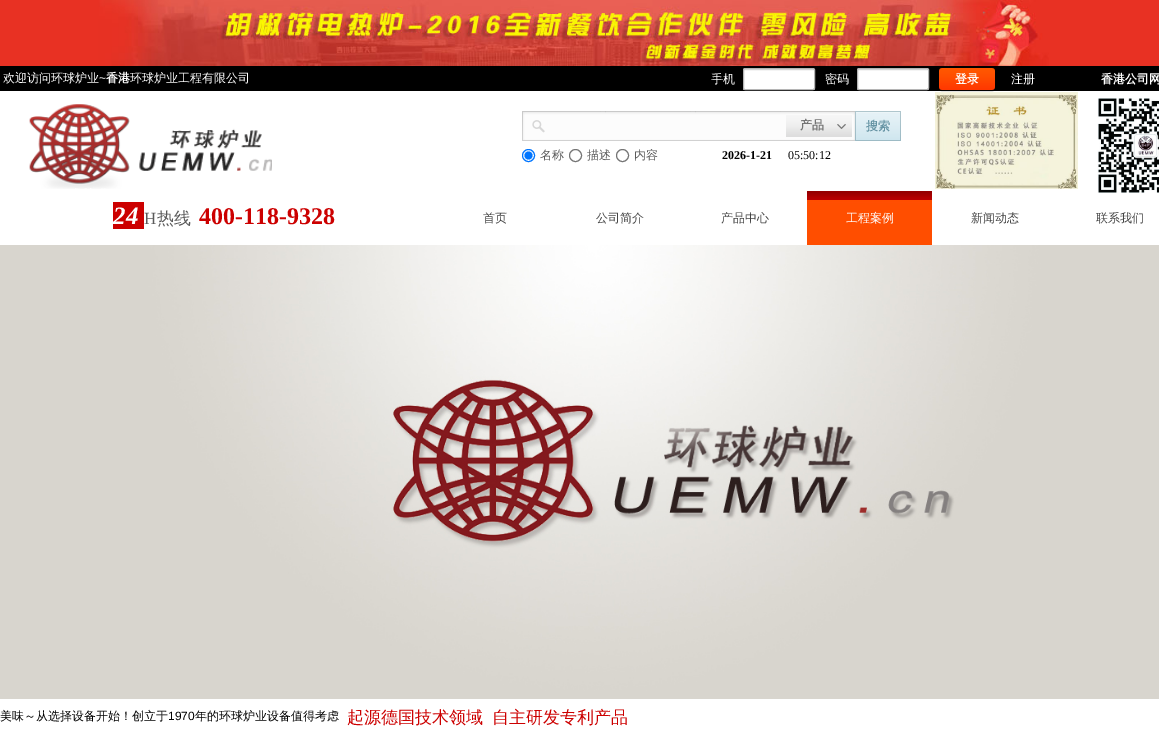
%!PS-Adobe-3.0
%%BoundingBox: 0 0 1159 729
%%LanguageLevel: 3
%%Pages: 1
%%EndComments
%%BeginProlog
/setink { dup -16 bitshift 255 div exch dup -8 bitshift 255 and 255 div exch 255 and 255 div setrgbcolor } def
/usefont { [ exch dup neg 0 0 3 -1 roll 0 0 ] selectfont } def
/setalpha { dup .setfillconstantalpha .setstrokeconstantalpha } def
/disc { newpath 0 360 arc closepath } def
/rrect { 5 dict begin { /r /h /w /y /x } { exch def } forall
  x r add y moveto x w add y 2 copy h add r arct x w add y h add x 1 index r arct
  x y h add x y r arct x y 2 copy exch w add exch r arct closepath end } def
/softshadow { 12 dict begin { /a /b /q /h /w /y /x } { exch def } forall gsave /was 0 def
  9 -2 -9 { dup b mul 4 div /e exch def 1 sub .425 mul 2.718 exch exp 1 add a .99 .min exch div /now exch def
    1 1 now sub 1 was sub div sub setalpha /was now def
    w h .min e 2 mul add 0 gt { x e sub y e sub w e 2 mul add h e 2 mul add
      q e add b .6 mul add w h .min 2 div e add .min 0 .max rrect fill } if } for grestore end } def
/drawimage { 5 dict begin { /h /w /y /x /name } { exch def } forall
  gsave x y translate w h scale
  w h 8 [w 0 0 h 0 0] name (r) file false 3 colorimage grestore end } def
%%EndProlog
%%BeginSetup
<< /PageSize [1159 729] /PageUsesTransparency true >> setpagedevice
%%EndSetup
%%Page: 1 1
0 .pushpdf14devicefilter
0 729 translate 1 -1 scale
4 setmiterlimit
16#FFFFFF setink
0 0 1159 729 rectfill
(img1.raw) 0 0 1159 66 drawimage
16#000000 setink
0 66 1159 25 rectfill
/WenQuanYiZenHei-Medium 12 usefont
16#FFFFFF setink
3 82 moveto (欢迎访问环球炉业) show
/LiberationSans-Regular 12 usefont
99 82 moveto (~) show
/WenQuanYiZenHei-Bold 12 usefont
106 82 moveto (香港) show
/WenQuanYiZenHei-Medium 12 usefont
130 82 moveto (环球炉业工程有限公司) show
711 83 moveto (手机) show
(img2.raw) 743 69 72 21 drawimage
16#B5B5B5 setink
743.5 68.5 71 21 1.5 rrect stroke
16#FFFFFF setink
825 83 moveto (密码) show
(img2.raw) 857 69 72 21 drawimage
16#B5B5B5 setink
857.5 68.5 71 21 1.5 rrect stroke
16#000000 setink
939 69 56 22 3 0.5 0.4 softshadow
(img3.raw) 939 68 56 22 drawimage
/WenQuanYiZenHei-Bold 12 usefont
16#FFFFFF setink
955 83 moveto (登录) show
/WenQuanYiZenHei-Medium 12 usefont
1011 83 moveto (注册) show
/WenQuanYiZenHei-Bold 12 usefont
1101 83 moveto (香港公司网) show
(img4.raw) 29 104 243 85 drawimage
(img5.raw) 522 111 25 30 drawimage
(img6.raw) 547 111 308 30 drawimage
(img7.raw) 785 111 3 26 drawimage
(img8.raw) 788 115 48 22 drawimage
16#747474 setink
800 129 moveto (产品) show
(img9.raw) 836 112 19 28 drawimage
(img10.raw) 855 111 1 30 drawimage
(img11.raw) 856 111 44 30 drawimage
16#6694A4 setink
866 130 moveto (搜索) show
(img10.raw) 900 111 1 30 drawimage
16#0075FF setink
528.5 155.5 6 disc stroke
528.5 155.5 4 disc fill
/WenQuanYiZenHei-Medium 12 usefont
16#5A5A5A setink
540 159 moveto (名称) show
16#767676 setink
575.5 155.5 6 disc stroke
16#5A5A5A setink
587 159 moveto (描述) show
16#767676 setink
622.5 155.5 6 disc stroke
16#5A5A5A setink
634 159 moveto (内容) show
(img12.raw) 935 92 143 97 drawimage
(img13.raw) 1097 98 62 95 drawimage
/LiberationSerif-Bold 12 usefont
16#000000 setink
722 159 moveto (2026-1-21) show
/LiberationSerif-Regular 12 usefont
788 159 moveto (05:50:12) show
16#CC0000 setink
113 202 31 27 rectfill
/LiberationSerif-BoldItalic 25 usefont
16#FFFFFF setink
113 224 moveto (24) show
/LiberationSerif-Regular 17 usefont
16#5A5A5A setink
144 224 moveto (H) show
/WenQuanYiZenHei-Medium 17 usefont
157 224 moveto (热线) show
/LiberationSerif-Bold 24 usefont
16#CC0000 setink
199 224 moveto (400-118-9328) show
/WenQuanYiZenHei-Medium 12 usefont
16#434343 setink
[
    [(首页) 483 222]
    [(公司简介) 596 222]
    [(产品中心) 721 222]
] { aload pop moveto show } forall
(img14.raw) 807 191 125 54 drawimage
16#FFFFFF setink
846 222 moveto (工程案例) show
16#434343 setink
971 222 moveto (新闻动态) show
1096 222 moveto (联系我们) show
(img15.raw) 0 245 1159 454 drawimage
16#000000 setink
0 720 moveto (美味～从选择设备开始！创立于) show
/LiberationSans-Regular 12 usefont
168 720 moveto (1970) show
/WenQuanYiZenHei-Medium 12 usefont
195 720 moveto (年的环球炉业设备值得考虑) show
/WenQuanYiZenHei-Medium 17 usefont
16#CC0000 setink
347 723 moveto (起源德国技术领域) show
492 723 moveto (自主研发专利产品) show
.poppdf14devicefilter showpage
%%EOF
